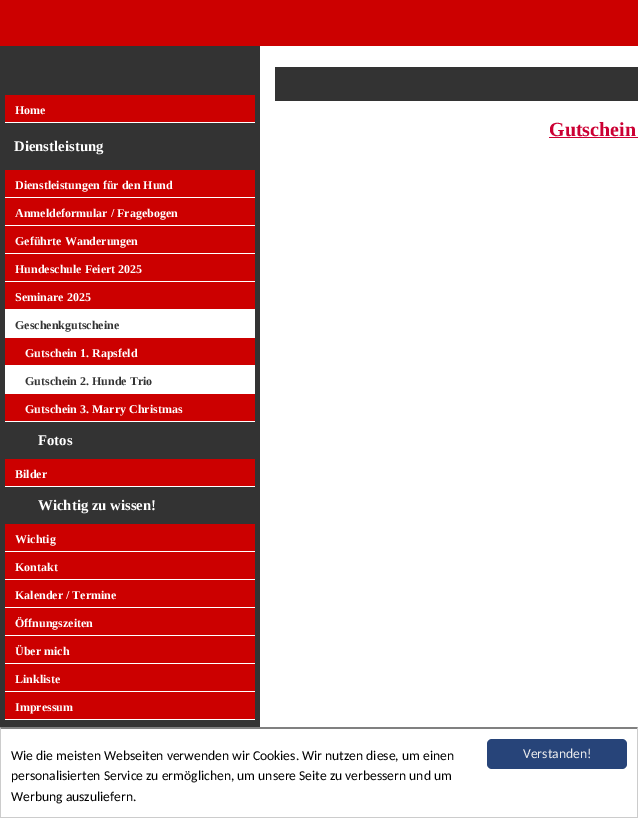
%!PS-Adobe-3.0
%%BoundingBox: 0 0 638 818
%%LanguageLevel: 3
%%Pages: 1
%%EndComments
%%BeginProlog
/setink { dup -16 bitshift 255 div exch dup -8 bitshift 255 and 255 div exch 255 and 255 div setrgbcolor } def
/usefont { [ exch dup neg 0 0 3 -1 roll 0 0 ] selectfont } def
/rrect { 5 dict begin { /r /h /w /y /x } { exch def } forall
  x r add y moveto x w add y 2 copy h add r arct x w add y h add x 1 index r arct
  x y h add x y r arct x y 2 copy exch w add exch r arct closepath end } def
%%EndProlog
%%BeginSetup
<< /PageSize [638 818] >> setpagedevice
%%EndSetup
%%Page: 1 1
0 818 translate 1 -1 scale
4 setmiterlimit
16#CC0000 setink
0 0 638 818 rectfill
[
    [0 46 260 683 16#333333]
    [5 95 250 27 16#CC0000]
    [5 122 250 1 16#FFFFFF]
] { aload pop setink rectfill } forall
/LiberationSerif-Bold 12 usefont
15 114 moveto (Home) show
/LiberationSerif-Bold 14.75 usefont
14 151 moveto (Dienstleistung) show
16#CC0000 setink
5 170 250 27 rectfill
16#FFFFFF setink
5 197 250 1 rectfill
/LiberationSerif-Bold 12 usefont
15 189 moveto (Dienstleistungen für den Hund) show
16#CC0000 setink
5 198 250 27 rectfill
16#FFFFFF setink
5 225 250 1 rectfill
15 217 moveto (Anmeldeformular / Fragebogen) show
16#CC0000 setink
5 226 250 27 rectfill
16#FFFFFF setink
5 253 250 1 rectfill
15 245 moveto (Geführte Wanderungen) show
16#CC0000 setink
5 254 250 27 rectfill
16#FFFFFF setink
5 281 250 1 rectfill
15 273 moveto (Hundeschule Feiert 2025) show
16#CC0000 setink
5 282 250 27 rectfill
16#FFFFFF setink
5 309 250 29 rectfill
15 301 moveto (Seminare 2025) show
16#333333 setink
15 329 moveto (Geschenkgutscheine) show
16#CC0000 setink
5 338 250 27 rectfill
16#FFFFFF setink
5 365 250 29 rectfill
25 357 moveto (Gutschein 1. Rapsfeld) show
16#333333 setink
25 385 moveto (Gutschein 2. Hunde Trio) show
16#CC0000 setink
5 394 250 27 rectfill
16#FFFFFF setink
5 421 250 1 rectfill
25 413 moveto (Gutschein 3. Marry Christmas) show
/LiberationSerif-Bold 14.75 usefont
38 445 moveto (Fotos) show
16#CC0000 setink
5 459 250 27 rectfill
16#FFFFFF setink
5 486 250 1 rectfill
/LiberationSerif-Bold 12 usefont
15 478 moveto (Bilder) show
/LiberationSerif-Bold 14.75 usefont
38 510 moveto (Wichtig zu wissen!) show
16#CC0000 setink
5 524 250 27 rectfill
16#FFFFFF setink
5 551 250 1 rectfill
/LiberationSerif-Bold 12 usefont
15 543 moveto (Wichtig) show
16#CC0000 setink
5 552 250 27 rectfill
16#FFFFFF setink
5 579 250 1 rectfill
15 571 moveto (Kontakt) show
16#CC0000 setink
5 580 250 27 rectfill
16#FFFFFF setink
5 607 250 1 rectfill
15 599 moveto (Kalender / Termine) show
16#CC0000 setink
5 608 250 27 rectfill
16#FFFFFF setink
5 635 250 1 rectfill
15 627 moveto (Öffnungszeiten) show
16#CC0000 setink
5 636 250 27 rectfill
16#FFFFFF setink
5 663 250 1 rectfill
15 655 moveto (Über mich) show
16#CC0000 setink
5 664 250 27 rectfill
16#FFFFFF setink
5 691 250 1 rectfill
15 683 moveto (Linkliste) show
16#CC0000 setink
5 692 250 27 rectfill
16#FFFFFF setink
5 719 250 1 rectfill
15 711 moveto (Impressum) show
260 46 378 683 rectfill
16#333333 setink
275 67 363 34 rectfill
/LiberationSerif-Bold 20 usefont
16#CC0033 setink
549 136 moveto (Gutschein) show
549 137 89 1 rectfill
16#FFFFFF setink
1 729 636 88 rectfill
16#808080 setink
0 727 moveto 638 727 lineto 637 729 lineto 1 729 lineto closepath fill
16#CCCCCC setink
638 727 moveto 638 818 lineto 637 817 lineto 637 729 lineto closepath fill
0 817 638 1 rectfill
0 818 moveto 0 727 lineto 1 729 lineto 1 817 lineto closepath fill
/Carlito-Regular 13.6 usefont
16#000000 setink
[
    [(Wie die meisten Webseiten verwenden wir Cookies. Wir nutzen diese, um einen) 11 760]
    [(personalisierten Service zu ermöglichen, um unsere Seite zu verbessern und um) 11 780]
    [(Werbung auszuliefern.) 11 801]
] { aload pop moveto show } forall
16#274479 setink
487 739 140 30 5 rrect fill
16#EEEEEE setink
523 758 moveto (Verstanden!) show
showpage
%%EOF
